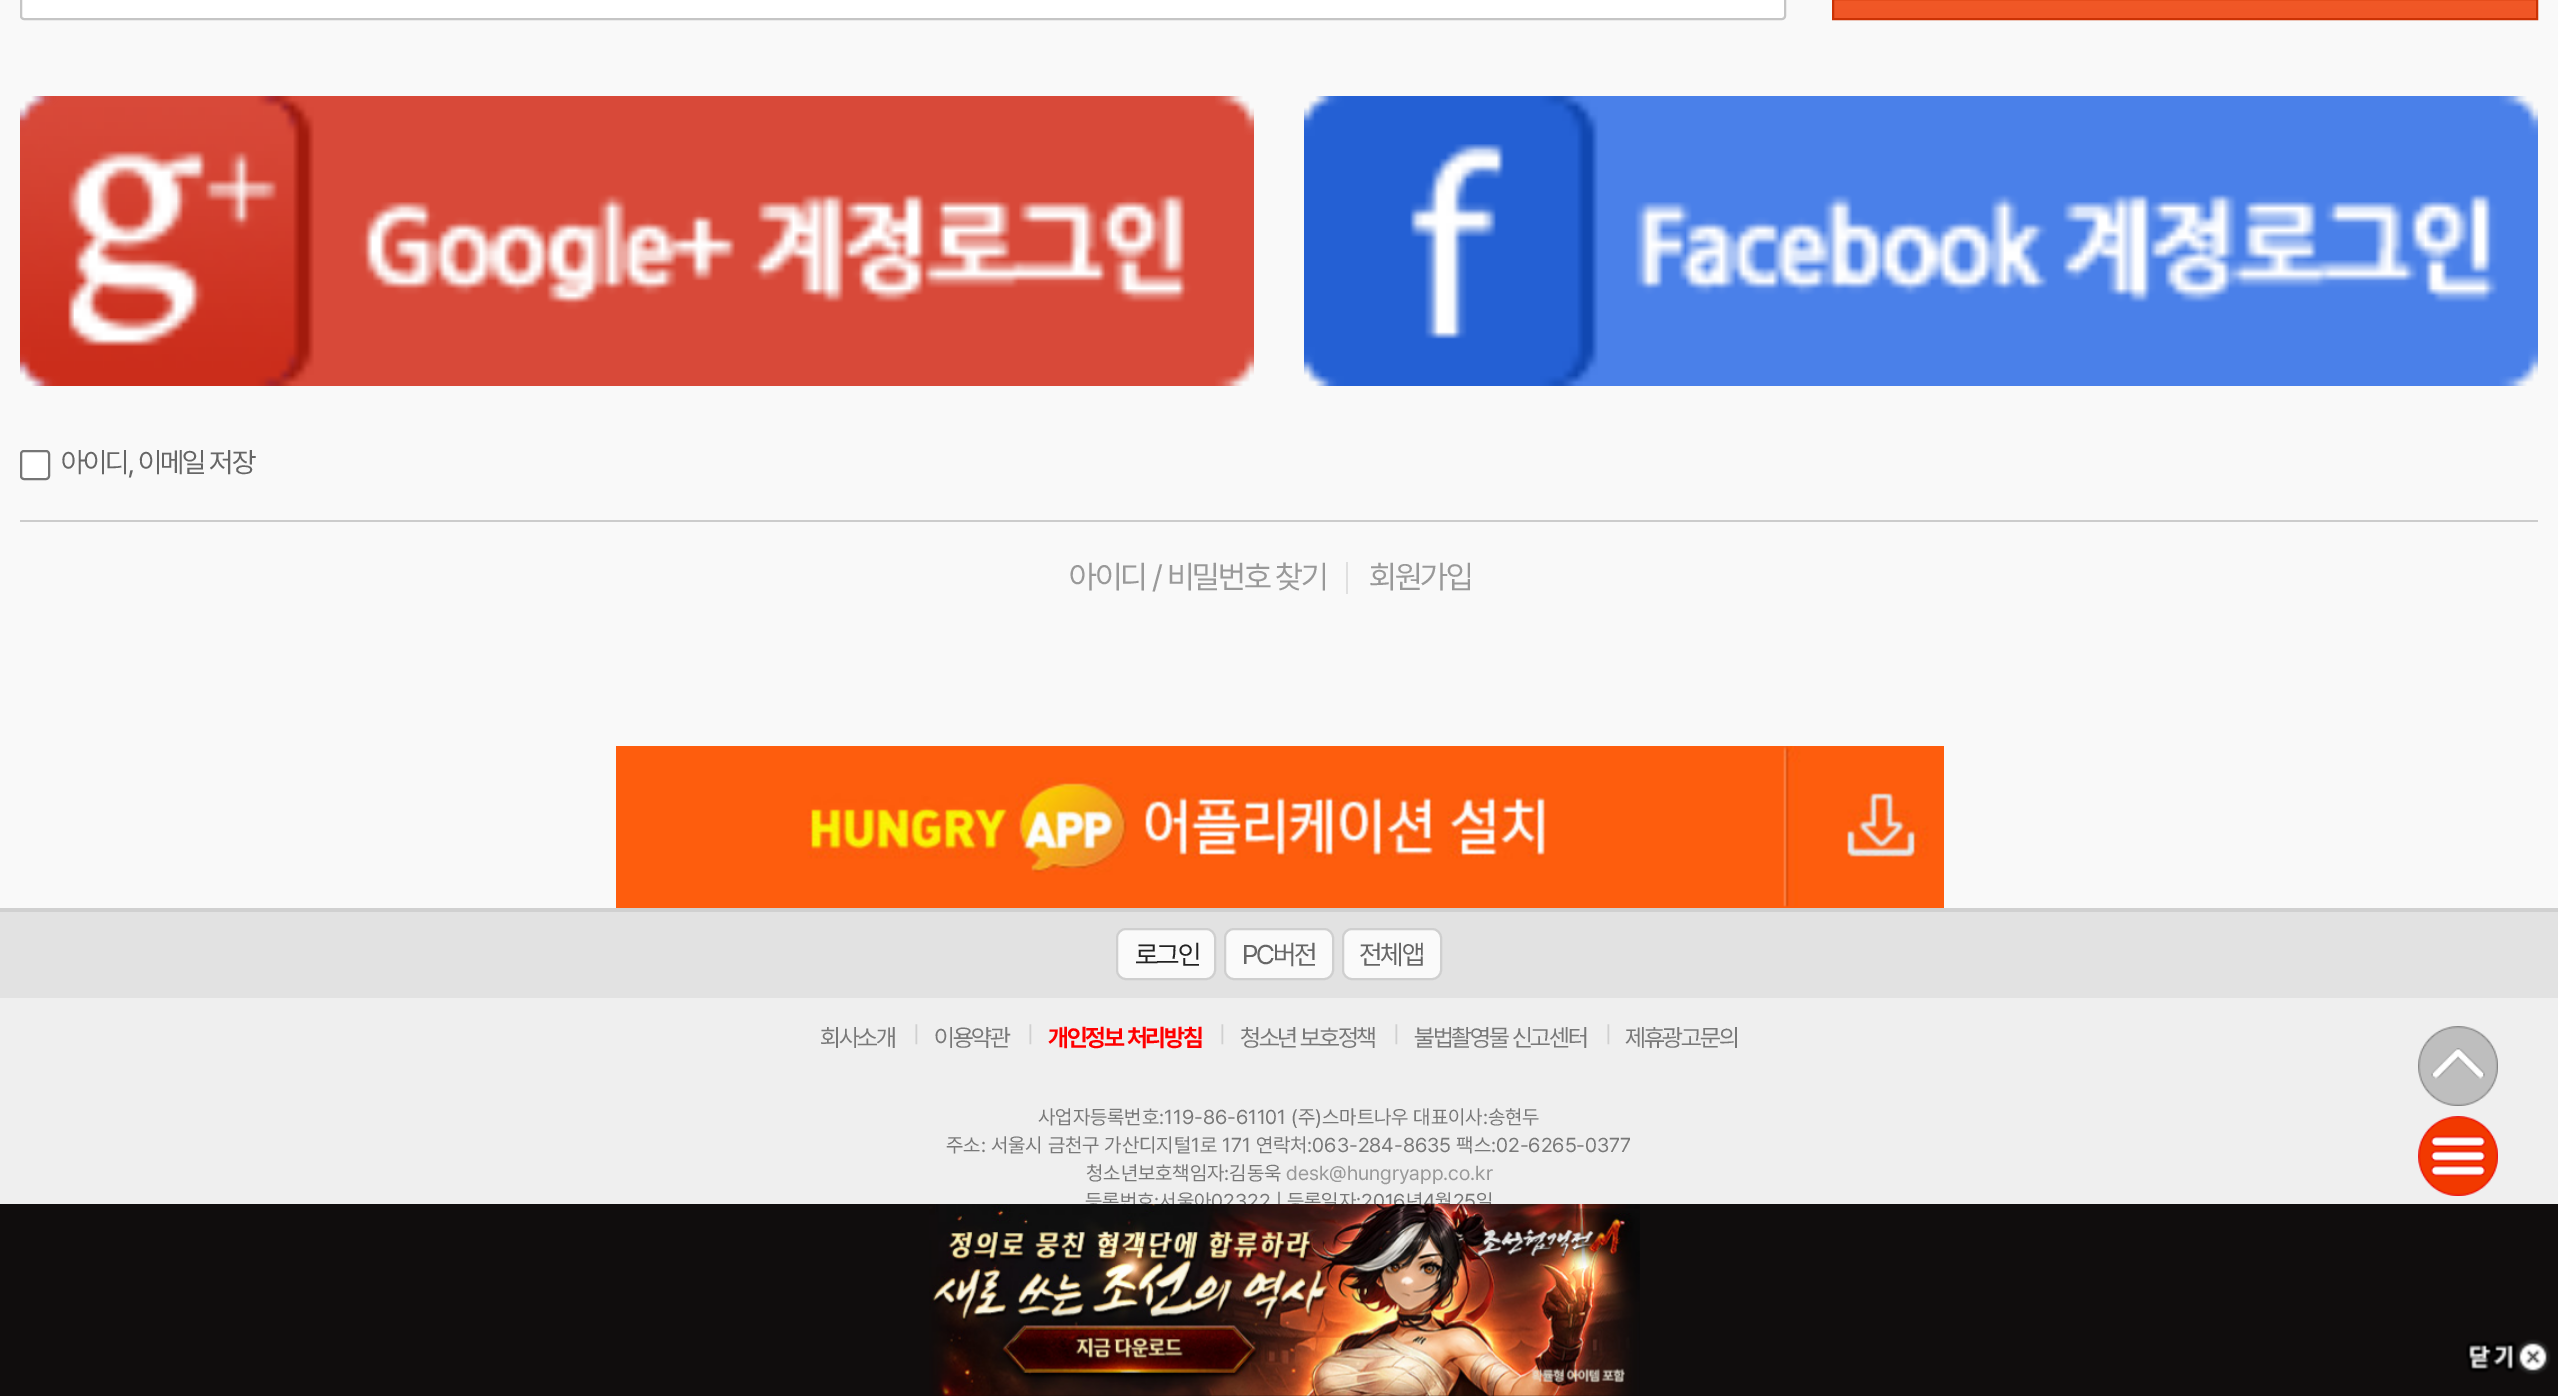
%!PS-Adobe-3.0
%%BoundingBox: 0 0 2558 1396
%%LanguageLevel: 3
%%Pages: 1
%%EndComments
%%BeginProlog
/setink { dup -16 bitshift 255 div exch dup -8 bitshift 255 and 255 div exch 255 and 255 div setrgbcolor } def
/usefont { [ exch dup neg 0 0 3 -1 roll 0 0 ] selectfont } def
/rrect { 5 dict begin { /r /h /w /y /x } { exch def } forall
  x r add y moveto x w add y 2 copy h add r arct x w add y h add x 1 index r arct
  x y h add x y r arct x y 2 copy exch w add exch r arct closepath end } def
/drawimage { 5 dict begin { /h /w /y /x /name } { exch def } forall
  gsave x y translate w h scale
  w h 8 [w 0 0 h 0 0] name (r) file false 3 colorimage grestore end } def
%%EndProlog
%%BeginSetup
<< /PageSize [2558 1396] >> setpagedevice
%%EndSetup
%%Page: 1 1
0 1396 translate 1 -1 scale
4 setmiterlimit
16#F9F9F9 setink
0 0 2558 1396 rectfill
16#FFFFFF setink
21 -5 1764 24 3 rrect gsave fill grestore
16#C5C5C5 setink
2 setlinewidth
stroke
gsave 1834 0 moveto 2536 0 lineto 2536 18 lineto 1834 18 lineto closepath clip newpath
<< /ShadingType 2 /ColorSpace /DeviceRGB /Coords [1834 -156 1834 18] /Extend [true true] /Function << /FunctionType 2 /Domain [0 1] /C0 [0.984 0.42 0.141] /C1 [0.941 0.337 0.149] /N 1 >> >> shfill grestore
16#CB3204 setink
1833 -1 704 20 rectstroke
(img1.raw) 20 96 1234 290 drawimage
(img2.raw) 1304 96 1234 290 drawimage
16#FFFFFF setink
21 451 28 28 3 rrect gsave fill grestore
16#767676 setink
stroke
/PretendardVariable-Regular 28 usefont
16#666666 setink
61 472 moveto -2 0 (아이디, 이메일 저장) ashow
16#CCCCCC setink
20 520 2518 2 rectfill
16#E0E0E0 setink
1346 562 2 32 rectfill
/PretendardVariable-Regular 32 usefont
16#999999 setink
1069 588 moveto -2 0 (아이디 / 비밀번호 찾기) ashow
1369 588 moveto -2 0 (회원가입) ashow
(img3.raw) 616 746 1328 162 drawimage
[
    [0 998 2558 206 16#EFEFEF]
    [0 908 2558 4 16#D0D0D0]
    [0 912 2558 86 16#E2E2E2]
] { aload pop setink rectfill } forall
16#FAFAFA setink
1117 929 98 50 9 rrect gsave fill grestore
16#CFCFCF setink
stroke
/PretendardVariable-Regular 27 usefont
16#222222 setink
1135 964 moveto -2 0 (로그인) ashow
16#FAFAFA setink
1225 929 108 50 9 rrect gsave fill grestore
16#CFCFCF setink
stroke
16#666666 setink
1242 964 moveto -2 0 (PC버전) ashow
16#FAFAFA setink
1343 929 98 50 9 rrect gsave fill grestore
16#CFCFCF setink
stroke
16#666666 setink
1359 964 moveto -2 0 (전체앱) ashow
/PretendardVariable-Regular 24 usefont
16#787878 setink
820 1046 moveto -2 0 (회사소개) ashow
/PretendardVariable-Regular 22 usefont
16#D0D0D0 setink
913 1042 moveto -2 0 (|) ashow
/PretendardVariable-Regular 24 usefont
16#787878 setink
934 1046 moveto -2 0 (이용약관) ashow
/PretendardVariable-Regular 22 usefont
16#D0D0D0 setink
1027 1042 moveto -2 0 (|) ashow
/PretendardVariable-Bold 24 usefont
16#FF0000 setink
1048 1046 moveto -2 0 (개인정보 처리방침) ashow
/PretendardVariable-Regular 22 usefont
16#D0D0D0 setink
1219 1042 moveto -2 0 (|) ashow
/PretendardVariable-Regular 24 usefont
16#787878 setink
1240 1046 moveto -2 0 (청소년 보호정책) ashow
/PretendardVariable-Regular 22 usefont
16#D0D0D0 setink
1393 1042 moveto -2 0 (|) ashow
/PretendardVariable-Regular 24 usefont
16#787878 setink
1414 1046 moveto -2 0 (불법촬영물 신고센터) ashow
/PretendardVariable-Regular 22 usefont
16#D0D0D0 setink
1605 1042 moveto -2 0 (|) ashow
/PretendardVariable-Regular 24 usefont
16#787878 setink
1625 1046 moveto -2 0 (제휴광고문의) ashow
/PretendardVariable-Regular 20 usefont
[
    [(사업자등록번호:119-86-61101 \(주\)스마트나우 대표이사:송현두) 1038 1124]
    [(주소: 서울시 금천구 가산디지털1로 171 연락처:063-284-8635 팩스:02-6265-0377) 946 1152]
    [(청소년보호책임자:김동욱) 1086 1180]
] { aload pop moveto show } forall
16#999999 setink
1286 1180 moveto (desk@hungryapp.co.kr) show
16#787878 setink
1085 1208 moveto (등록번호:서울아02322 | 등록일자:2016년4월25일) show
(img4.raw) 2418 1026 80 80 drawimage
(img5.raw) 2418 1116 80 80 drawimage
16#100D0D setink
0 1204 2558 192 rectfill
(img6.raw) 929 1204 711 192 drawimage
(img7.raw) 2466 1339 85 36 drawimage
showpage
%%EOF
